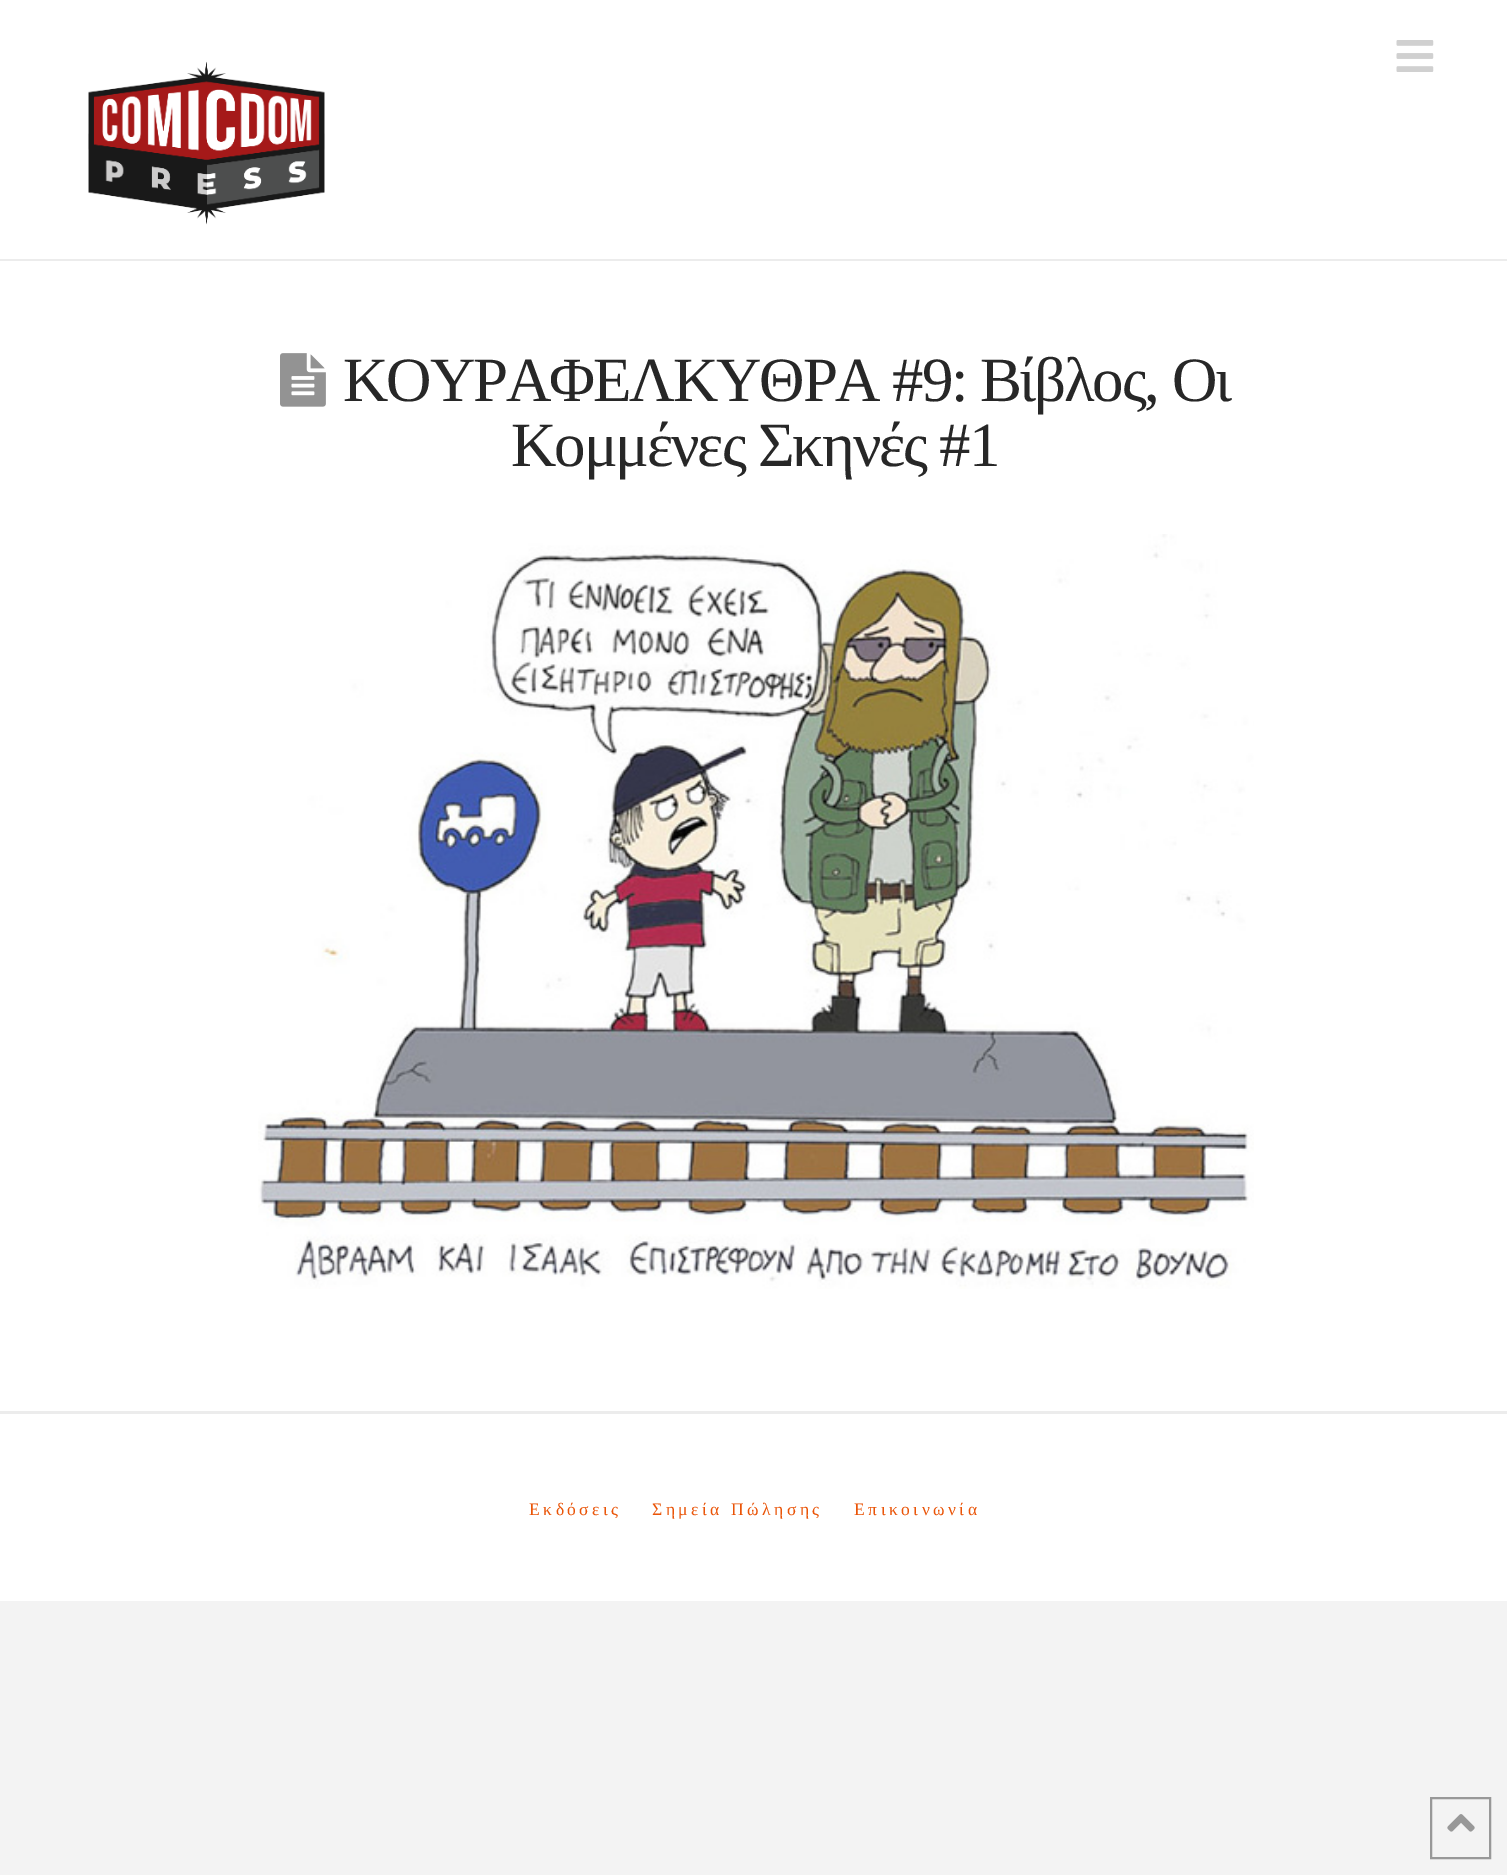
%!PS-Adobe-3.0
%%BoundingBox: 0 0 1507 1875
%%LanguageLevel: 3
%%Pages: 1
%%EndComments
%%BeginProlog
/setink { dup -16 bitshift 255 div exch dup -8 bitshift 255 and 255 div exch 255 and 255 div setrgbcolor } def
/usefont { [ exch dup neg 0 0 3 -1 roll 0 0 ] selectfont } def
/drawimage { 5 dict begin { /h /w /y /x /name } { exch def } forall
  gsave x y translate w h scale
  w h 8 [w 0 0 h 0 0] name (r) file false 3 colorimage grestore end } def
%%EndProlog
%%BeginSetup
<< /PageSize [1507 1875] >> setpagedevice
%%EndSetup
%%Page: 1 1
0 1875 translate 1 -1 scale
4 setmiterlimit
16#F3F3F3 setink
0 0 1507 1875 rectfill
16#FFFFFF setink
0 0 1507 1411 rectfill
16#ECECEC setink
0 259 1507 2 rectfill
(img1.raw) 1396 40 38 32 drawimage
(img2.raw) 88 61 237 164 drawimage
0 1411 1507 3 rectfill
(img3.raw) 280 353 46 54 drawimage
/LiberationSerif-Regular 63 usefont
16#272727 setink
343 401 moveto -2.2 0 (ΚΟΥΡΑΦΕΛΚΥΘΡΑ #9: Βίβλος, Οι) ashow
511 466 moveto -2.2 0 (Κομμένες Σκηνές #1) ashow
(img4.raw) 258 534 996 755 drawimage
16#FFFFFF setink
0 1414 1507 187 rectfill
/LiberationSerif-Regular 17.5 usefont
16#EA5407 setink
529 1515 moveto 3.5 0 (Εκδόσεις) ashow
652 1515 moveto 3.5 0 (Σημεία Πώλησης) ashow
854 1515 moveto 3.5 0 (Επικοινωνία) ashow
16#989898 setink
2 setlinewidth
1431 1798 59 60 rectstroke
(img5.raw) 1447 1814 28 18 drawimage
showpage
%%EOF
